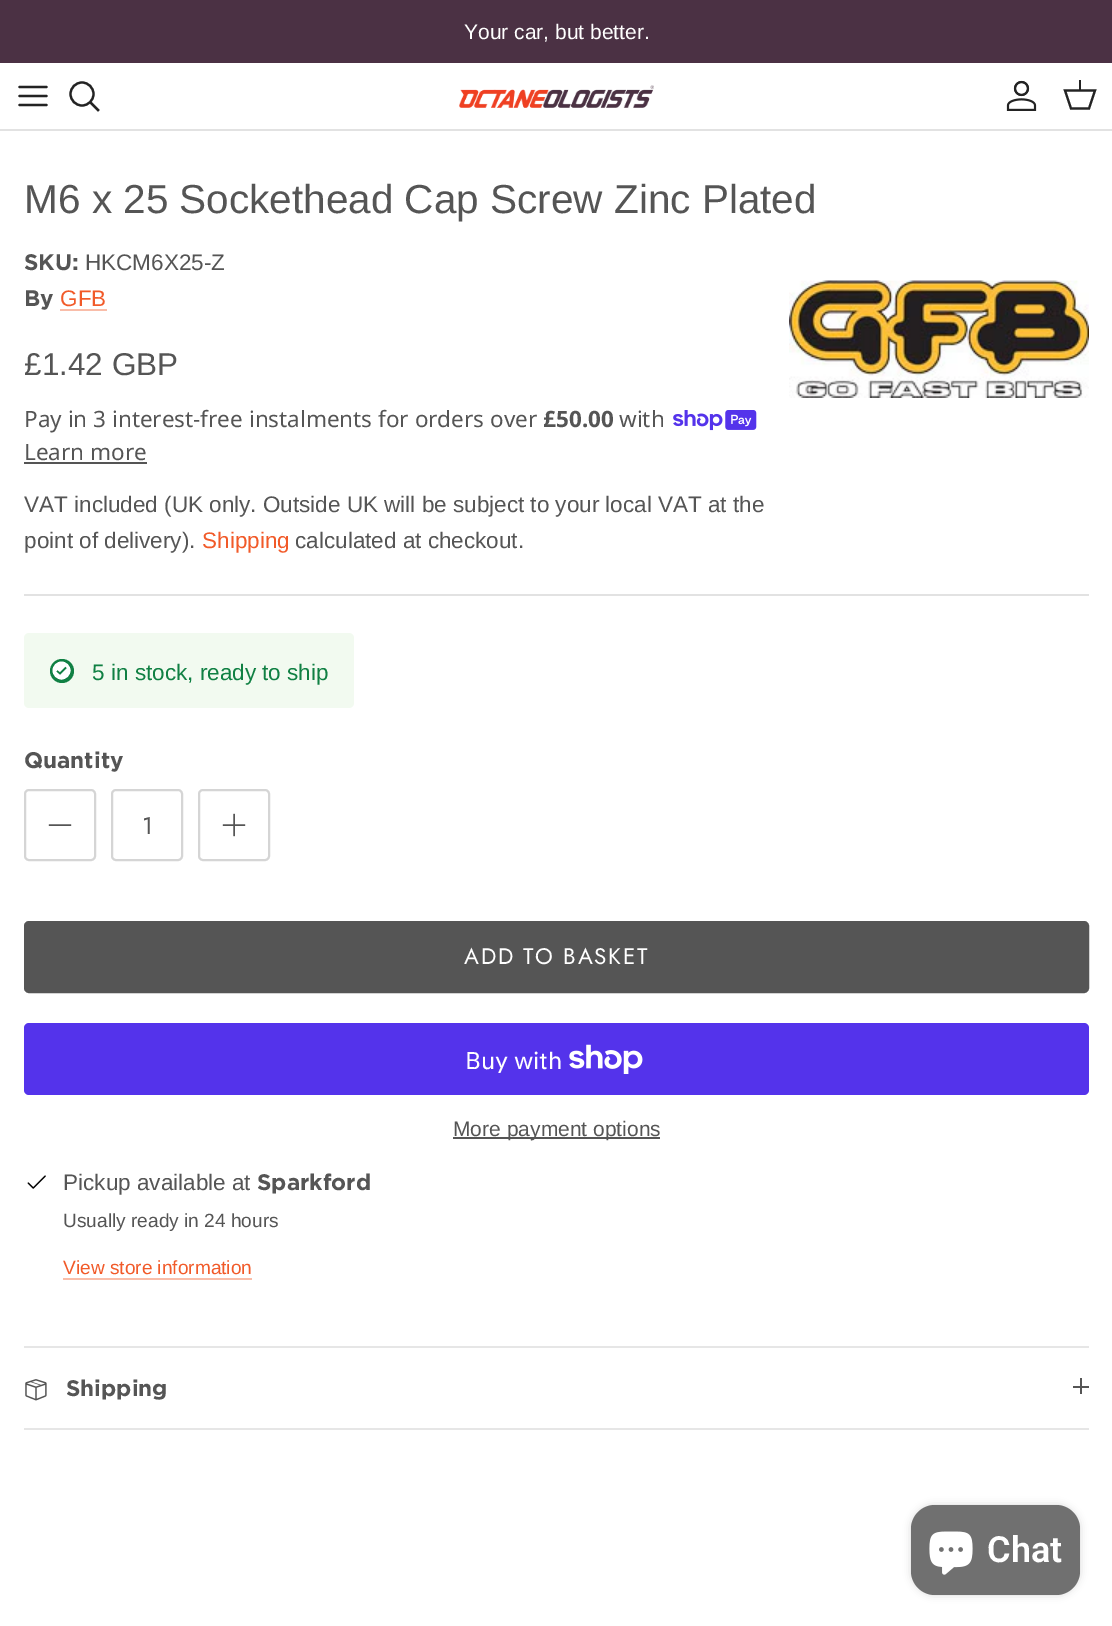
%!PS-Adobe-3.0
%%BoundingBox: 0 0 1112 1626
%%LanguageLevel: 3
%%Pages: 1
%%EndComments
%%BeginProlog
/setink { dup -16 bitshift 255 div exch dup -8 bitshift 255 and 255 div exch 255 and 255 div setrgbcolor } def
/usefont { [ exch dup neg 0 0 3 -1 roll 0 0 ] selectfont } def
/setalpha { dup .setfillconstantalpha .setstrokeconstantalpha } def
/disc { newpath 0 360 arc closepath } def
/rrect { 5 dict begin { /r /h /w /y /x } { exch def } forall
  x r add y moveto x w add y 2 copy h add r arct x w add y h add x 1 index r arct
  x y h add x y r arct x y 2 copy exch w add exch r arct closepath end } def
/softshadow { 12 dict begin { /a /b /q /h /w /y /x } { exch def } forall gsave /was 0 def
  9 -2 -9 { dup b mul 4 div /e exch def 1 sub .425 mul 2.718 exch exp 1 add a .99 .min exch div /now exch def
    1 1 now sub 1 was sub div sub setalpha /was now def
    w h .min e 2 mul add 0 gt { x e sub y e sub w e 2 mul add h e 2 mul add
      q e add b .6 mul add w h .min 2 div e add .min 0 .max rrect fill } if } for grestore end } def
/drawimage { 5 dict begin { /h /w /y /x /name } { exch def } forall
  gsave x y translate w h scale
  w h 8 [w 0 0 h 0 0] name (r) file false 3 colorimage grestore end } def
%%EndProlog
%%BeginSetup
<< /PageSize [1112 1626] /PageUsesTransparency true >> setpagedevice
%%EndSetup
%%Page: 1 1
0 .pushpdf14devicefilter
0 1626 translate 1 -1 scale
4 setmiterlimit
16#FFFFFF setink
0 0 1112 1626 rectfill
16#4B3144 setink
0 0 1112 63 rectfill
/LiberationSans-Regular 21 usefont
16#FFFFFF setink
464 39 moveto (Your car, but better.) show
16#E2E2E2 setink
0 129 1112 2 rectfill
16#232323 setink
2.2 setlinewidth
1 setlinecap
1 setlinejoin
19.5 96 moveto 46.5 96 lineto 19.5 87 moveto 46.5 87 lineto 19.5 105 moveto 46.5 105 lineto stroke
0 setlinecap
0 setlinejoin
82 94 11.5 disc stroke
2 setlinecap
91.5 103.5 moveto 98 110 lineto stroke
(img1.raw) 459 85 195 23 drawimage
(img2.raw) 1006 80 31 31 drawimage
0 setlinecap
1065 90.5 moveto 1095 90.5 lineto 1089 108.5 lineto 1071 108.5 lineto closepath stroke
1079 80 2 11 rectfill
/LiberationSans-Regular 40.5 usefont
16#555555 setink
24 213 moveto (M6 x 25 Sockethead Cap Screw Zinc Plated) show
/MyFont-Bold 22.5 usefont
24 270 moveto (SKU:) show
/LiberationSans-Regular 22.5 usefont
85 270 moveto (HKCM6X25-Z) show
/MyFont-Bold 22.5 usefont
24 306 moveto (By) show
/LiberationSans-Regular 22.5 usefont
16#F15A29 setink
60 306 moveto (GFB) show
16#F9BDA9 setink
60 309 47 2 rectfill
(img3.raw) 789 280 300 118 drawimage
/LiberationSans-Regular 31.5 usefont
16#555555 setink
24 375 moveto (£1.42 GBP) show
/NotoSans-Regular 22.5 usefont
24 427 moveto (Pay in 3 interest-free instalments for orders over) show
/NotoSans-Bold 22.5 usefont
543 427 moveto (£50.00) show
/NotoSans-Regular 22.5 usefont
619 427 moveto (with) show
(img4.raw) 673 410 84 21 drawimage
24 460 moveto (Learn more) show
24 462 123 2 rectfill
/LiberationSans-Regular 22.5 usefont
24 512 moveto (VAT included \(UK only. Outside UK will be subject to your local VAT at the) show
24 548 moveto (point of delivery\).) show
16#F15A29 setink
202 548 moveto (Shipping) show
16#555555 setink
295 548 moveto (calculated at checkout.) show
16#E2E2E2 setink
24 594 1065 2 rectfill
16#F2FAF0 setink
24 633 330 75 5 rrect fill
16#108043 setink
62 671 12 disc fill
16#FFFFFF setink
61.5 670.5 10 disc gsave fill grestore
16#108043 setink
1.5 setlinewidth
stroke
66 667.5 moveto 60 673.5 lineto 57 671 lineto stroke
92 680 moveto (5 in stock, ready to ship) show
/MyFont-Bold 22.5 usefont
16#555555 setink
24 768 moveto (Quantity) show
16#D5D5D5 setink
2 setlinewidth
25 790 70 70 4 rrect stroke
16#555555 setink
1.5 setlinewidth
1 setlinecap
1 setlinejoin
49.5 825 moveto 70.5 825 lineto stroke
16#D5D5D5 setink
2 setlinewidth
0 setlinecap
0 setlinejoin
112 790 70 70 4 rrect stroke
/Jost-Regular 24 usefont
16#555555 setink
142 834 moveto (1) show
16#D5D5D5 setink
199 790 70 70 4 rrect stroke
16#555555 setink
1.5 setlinewidth
1 setlinecap
1 setlinejoin
234 814.5 moveto 234 835.5 lineto 223.5 825 moveto 244.5 825 lineto stroke
25 922 1063 70 4 rrect gsave fill grestore
2 setlinewidth
0 setlinecap
0 setlinejoin
stroke
/Jost-Regular 22.5 usefont
16#FFFFFF setink
464 964 moveto 1.75 0 (ADD TO BASKET) ashow
16#5433EB setink
24 1023 1065 72 5 rrect fill
/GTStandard-Regular 24 usefont
16#FFFFFF setink
465 1069 moveto (Buy with) show
(img5.raw) 569 1044 74 30 drawimage
16#555555 setink
453 1137 207 2 rectfill
/LiberationSans-Regular 21 usefont
453 1136 moveto (More payment options) show
(img6.raw) 27 1175 19 14 drawimage
/LiberationSans-Regular 22.5 usefont
63 1190 moveto (Pickup available at) show
/MyFont-Bold 22.5 usefont
257 1190 moveto (Sparkford) show
/LiberationSans-Regular 19.1 usefont
63 1227 moveto (Usually ready in 24 hours) show
16#F15A29 setink
63 1274 moveto (View store information) show
[
    [63 1278 189 2 16#F9BDA9]
    [24 1346 1065 2 16#E6E6E6]
    [24 1428 1065 2 16#E6E6E6]
] { aload pop setink rectfill } forall
(img7.raw) 25 1379 22 22 drawimage
/MyFont-Bold 22.5 usefont
16#555555 setink
66 1396 moveto (Shipping) show
1080 1378 2 16 rectfill
1073 1386 16 2 rectfill
16#000000 setink
911 1505 169 90 24 4 0.15 softshadow
16#707070 setink
911 1505 169 90 24 rrect fill
(img8.raw) 929 1531 44 44 drawimage
/Roboto-SemiBold 36 usefont
16#FFFFFF setink
987 1562 moveto (Chat) show
.poppdf14devicefilter showpage
%%EOF
